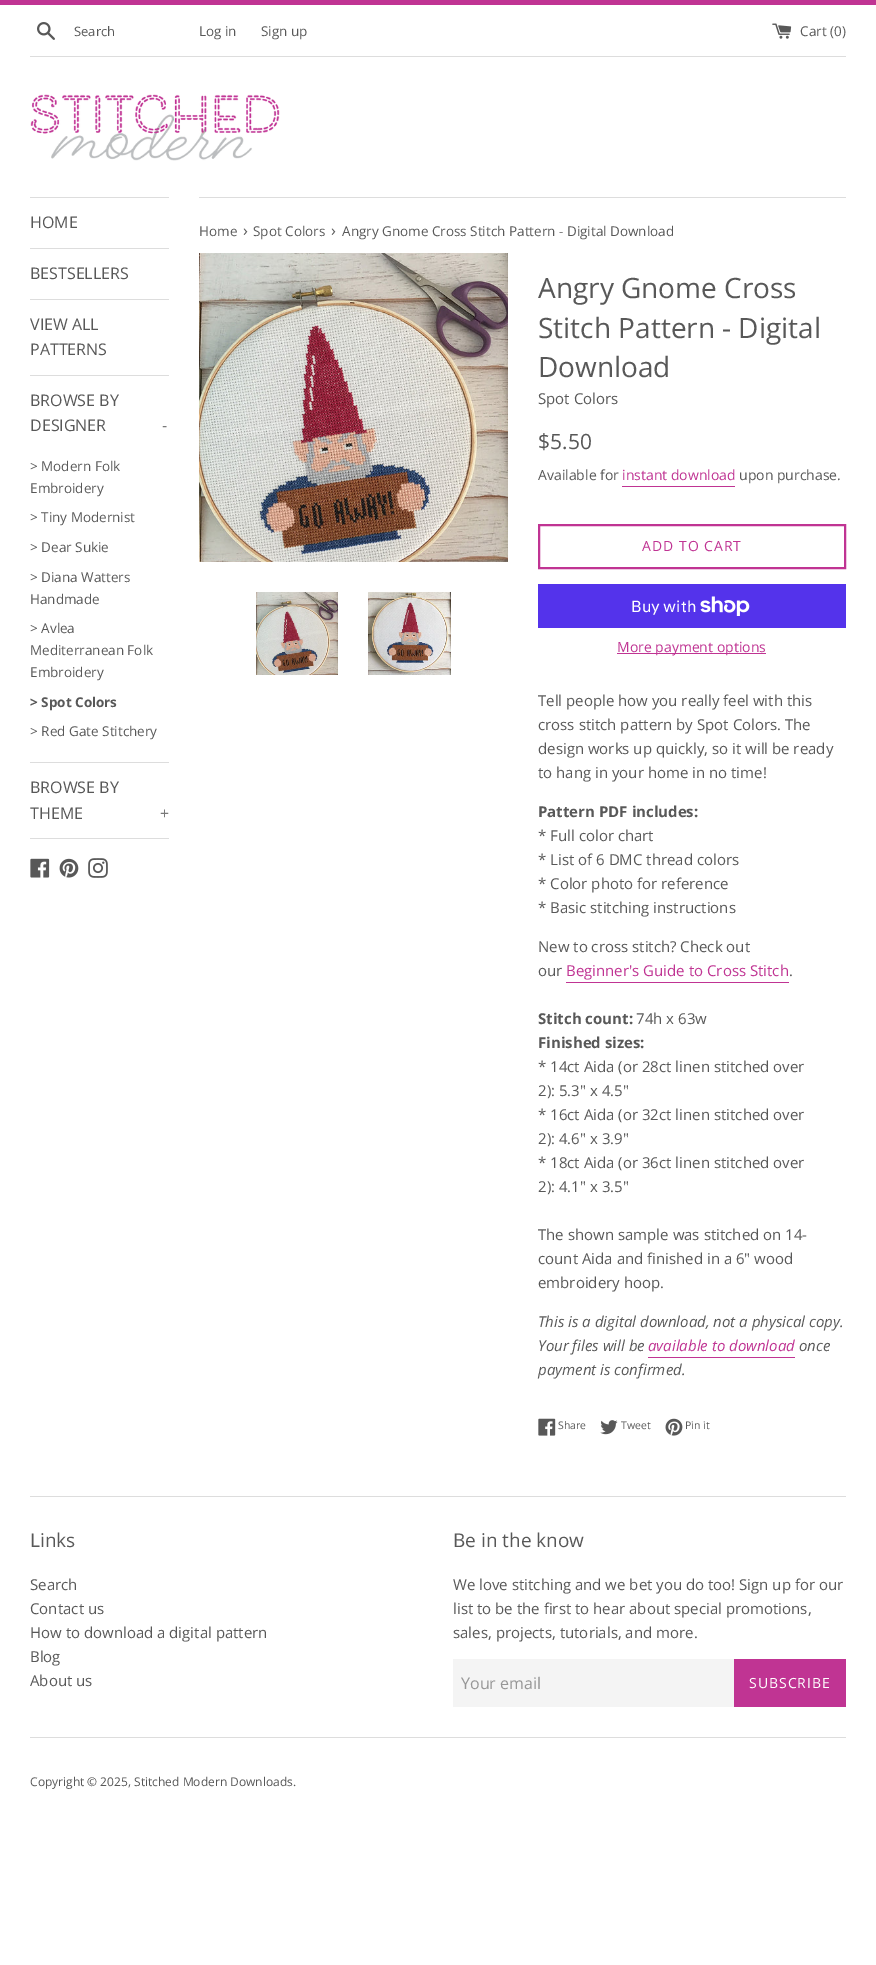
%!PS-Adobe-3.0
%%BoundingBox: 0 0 876 1965
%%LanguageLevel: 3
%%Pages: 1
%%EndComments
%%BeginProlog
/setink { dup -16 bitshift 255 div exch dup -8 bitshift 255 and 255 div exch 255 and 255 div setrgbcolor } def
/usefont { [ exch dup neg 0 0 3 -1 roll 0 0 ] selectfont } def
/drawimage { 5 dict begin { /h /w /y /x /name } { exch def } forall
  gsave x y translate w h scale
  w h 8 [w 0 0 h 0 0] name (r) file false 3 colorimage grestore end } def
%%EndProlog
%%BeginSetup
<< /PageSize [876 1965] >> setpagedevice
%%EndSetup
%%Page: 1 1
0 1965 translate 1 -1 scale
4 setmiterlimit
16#FFFFFF setink
0 0 876 1965 rectfill
16#C03493 setink
0 0 876 5 rectfill
(img1.raw) 37 22 18 18 drawimage
/OpenSans-Regular 13 usefont
16#585858 setink
74 36 moveto (Search) show
/OpenSans-Regular 13.5 usefont
199 36 moveto (Log in) show
261 36 moveto (Sign up) show
(img2.raw) 772 23 20 16 drawimage
800 36 moveto (Cart \(0\)) show
16#DDDDDD setink
30 56 816 1 rectfill
(img3.raw) 30 94 250 67 drawimage
30 197 139 1 rectfill
30 248 139 1 rectfill
/OpenSans-Regular 16 usefont
16#585858 setink
30 228 moveto (HOME) show
16#DDDDDD setink
30 299 139 1 rectfill
16#585858 setink
30 279 moveto (BESTSELLERS) show
16#DDDDDD setink
30 375 139 1 rectfill
16#585858 setink
30 330 moveto (VIEW ALL) show
30 355 moveto (PATTERNS) show
16#DDDDDD setink
30 762 139 1 rectfill
16#585858 setink
30 406 moveto (BROWSE BY) show
30 431 moveto (DESIGNER) show
16#797979 setink
162 431 moveto (-) show
/OpenSans-Regular 13.5 usefont
16#585858 setink
[
    [(> Modern Folk) 30 471]
    [(Embroidery) 30 493]
    [(> Tiny Modernist) 30 522]
    [(> Dear Sukie) 30 552]
    [(> Diana Watters) 30 582]
    [(Handmade) 30 604]
    [(> Avlea) 30 633]
    [(Mediterranean Folk) 30 655]
    [(Embroidery) 30 677]
] { aload pop moveto show } forall
/OpenSans-Bold 13.5 usefont
30 707 moveto (> Spot Colors) show
/OpenSans-Regular 13.5 usefont
30 736 moveto (> Red Gate Stitchery) show
16#DDDDDD setink
30 838 139 1 rectfill
/OpenSans-Regular 16 usefont
16#585858 setink
30 793 moveto (BROWSE BY) show
30 819 moveto (THEME) show
16#797979 setink
160 819 moveto (+) show
(img4.raw) 30 858 20 20 drawimage
(img5.raw) 59 858 20 20 drawimage
(img6.raw) 88 858 20 20 drawimage
16#DDDDDD setink
199 197 647 1 rectfill
/OpenSans-Regular 13.5 usefont
16#585858 setink
199 236 moveto (Home) show
/OpenSans-Regular 16 usefont
243 236 moveto (›) show
/OpenSans-Regular 13.5 usefont
253 236 moveto (Spot Colors) show
/OpenSans-Regular 16 usefont
331 236 moveto (›) show
/OpenSans-Regular 13.5 usefont
342 236 moveto (Angry Gnome Cross Stitch Pattern - Digital Download) show
(img7.raw) 199 253 309 309 drawimage
(img8.raw) 256 592 82 83 drawimage
(img9.raw) 368 592 83 83 drawimage
/OpenSans-Regular 28 usefont
[
    [(Angry Gnome Cross) 538 298]
    [(Stitch Pattern - Digital) 538 338]
    [(Download) 538 377]
] { aload pop moveto show } forall
/OpenSans-Regular 15 usefont
538 404 moveto (Spot Colors) show
/OpenSans-Regular 21 usefont
538 449 moveto ($5.50) show
/OpenSans-Regular 14 usefont
538 480 moveto (Available for) show
16#C03493 setink
622 480 moveto (instant download) show
622 486 113 1 rectfill
16#585858 setink
739 480 moveto (upon purchase.) show
16#C03493 setink
2 setlinewidth
539 525 306 43 rectstroke
642 551 moveto 1 0 (ADD TO CART) ashow
16#5433EB setink
538 584 308 44 rectfill
/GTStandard-Regular 16 usefont
16#FFFFFF setink
631 612 moveto (Buy with) show
(img10.raw) 700 596 50 20 drawimage
16#C03493 setink
617 653 149 1 rectfill
/OpenSans-Regular 14 usefont
617 652 moveto (More payment options) show
/OpenSans-Regular 15 usefont
16#585858 setink
[
    [(Tell people how you really feel with this) 538 706]
    [(cross stitch pattern by Spot Colors. The) 538 730]
    [(design works up quickly, so it will be ready) 538 754]
    [(to hang in your home in no time!) 538 778]
] { aload pop moveto show } forall
/OpenSans-Bold 15 usefont
538 817 moveto (Pattern PDF includes:) show
/OpenSans-Regular 15 usefont
[
    [(* Full color chart) 538 841]
    [(* List of 6 DMC thread colors) 538 865]
    [(* Color photo for reference) 538 889]
    [(* Basic stitching instructions) 538 913]
    [(New to cross stitch? Check out) 538 952]
    [(our) 538 976]
] { aload pop moveto show } forall
16#C03493 setink
566 976 moveto (Beginner's Guide to Cross Stitch) show
566 982 223 1 rectfill
16#585858 setink
789 976 moveto (.) show
/OpenSans-Bold 15 usefont
538 1024 moveto (Stitch count:) show
/OpenSans-Regular 15 usefont
636 1024 moveto (74h x 63w) show
/OpenSans-Bold 15 usefont
538 1048 moveto (Finished sizes:) show
/OpenSans-Regular 15 usefont
[
    [(* 14ct Aida \(or 28ct linen stitched over) 538 1072]
    [(2\): 5.3" x 4.5") 538 1096]
    [(* 16ct Aida \(or 32ct linen stitched over) 538 1120]
    [(2\): 4.6" x 3.9") 538 1144]
    [(* 18ct Aida \(or 36ct linen stitched over) 538 1168]
    [(2\): 4.1" x 3.5") 538 1192]
    [(The shown sample was stitched on 14-) 538 1240]
    [(count Aida and finished in a 6" wood) 538 1264]
    [(embroidery hoop.) 538 1288]
] { aload pop moveto show } forall
/OpenSans-Italic 15 usefont
538 1327 moveto (This is a digital download, not a physical copy.) show
538 1351 moveto (Your files will be) show
16#C03493 setink
648 1351 moveto (available to download) show
648 1357 147 1 rectfill
16#585858 setink
799 1351 moveto (once) show
538 1375 moveto (payment is confirmed.) show
(img11.raw) 538 1418 18 18 drawimage
/OpenSans-Regular 10.5 usefont
558 1429 moveto (Share) show
(img12.raw) 600 1420 18 15 drawimage
621 1429 moveto (Tweet) show
(img13.raw) 665 1418 18 18 drawimage
685 1429 moveto (Pin it) show
16#DDDDDD setink
30 1496 816 1 rectfill
/OpenSans-Regular 19 usefont
16#585858 setink
30 1547 moveto (Links) show
/OpenSans-Regular 15 usefont
[
    [(Search) 30 1590]
    [(Contact us) 30 1614]
    [(How to download a digital pattern) 30 1638]
    [(Blog) 30 1662]
    [(About us) 30 1686]
] { aload pop moveto show } forall
/OpenSans-Regular 19 usefont
453 1547 moveto (Be in the know) show
/OpenSans-Regular 15 usefont
[
    [(We love stitching and we bet you do too! Sign up for our) 453 1590]
    [(list to be the first to hear about special promotions,) 453 1614]
    [(sales, projects, tutorials, and more.) 453 1638]
] { aload pop moveto show } forall
16#F4F4F4 setink
453 1659 281 48 rectfill
/OpenSans-Regular 16 usefont
16#969696 setink
461 1689 moveto (Your email) show
16#C03493 setink
734 1659 112 48 rectfill
/OpenSans-Regular 14 usefont
16#FFFFFF setink
749 1688 moveto 1 0 (SUBSCRIBE) ashow
16#DDDDDD setink
30 1737 816 1 rectfill
/OpenSans-Regular 12 usefont
16#585858 setink
30 1786 moveto (Copyright © 2025, Stitched Modern Downloads.) show
showpage
%%EOF
